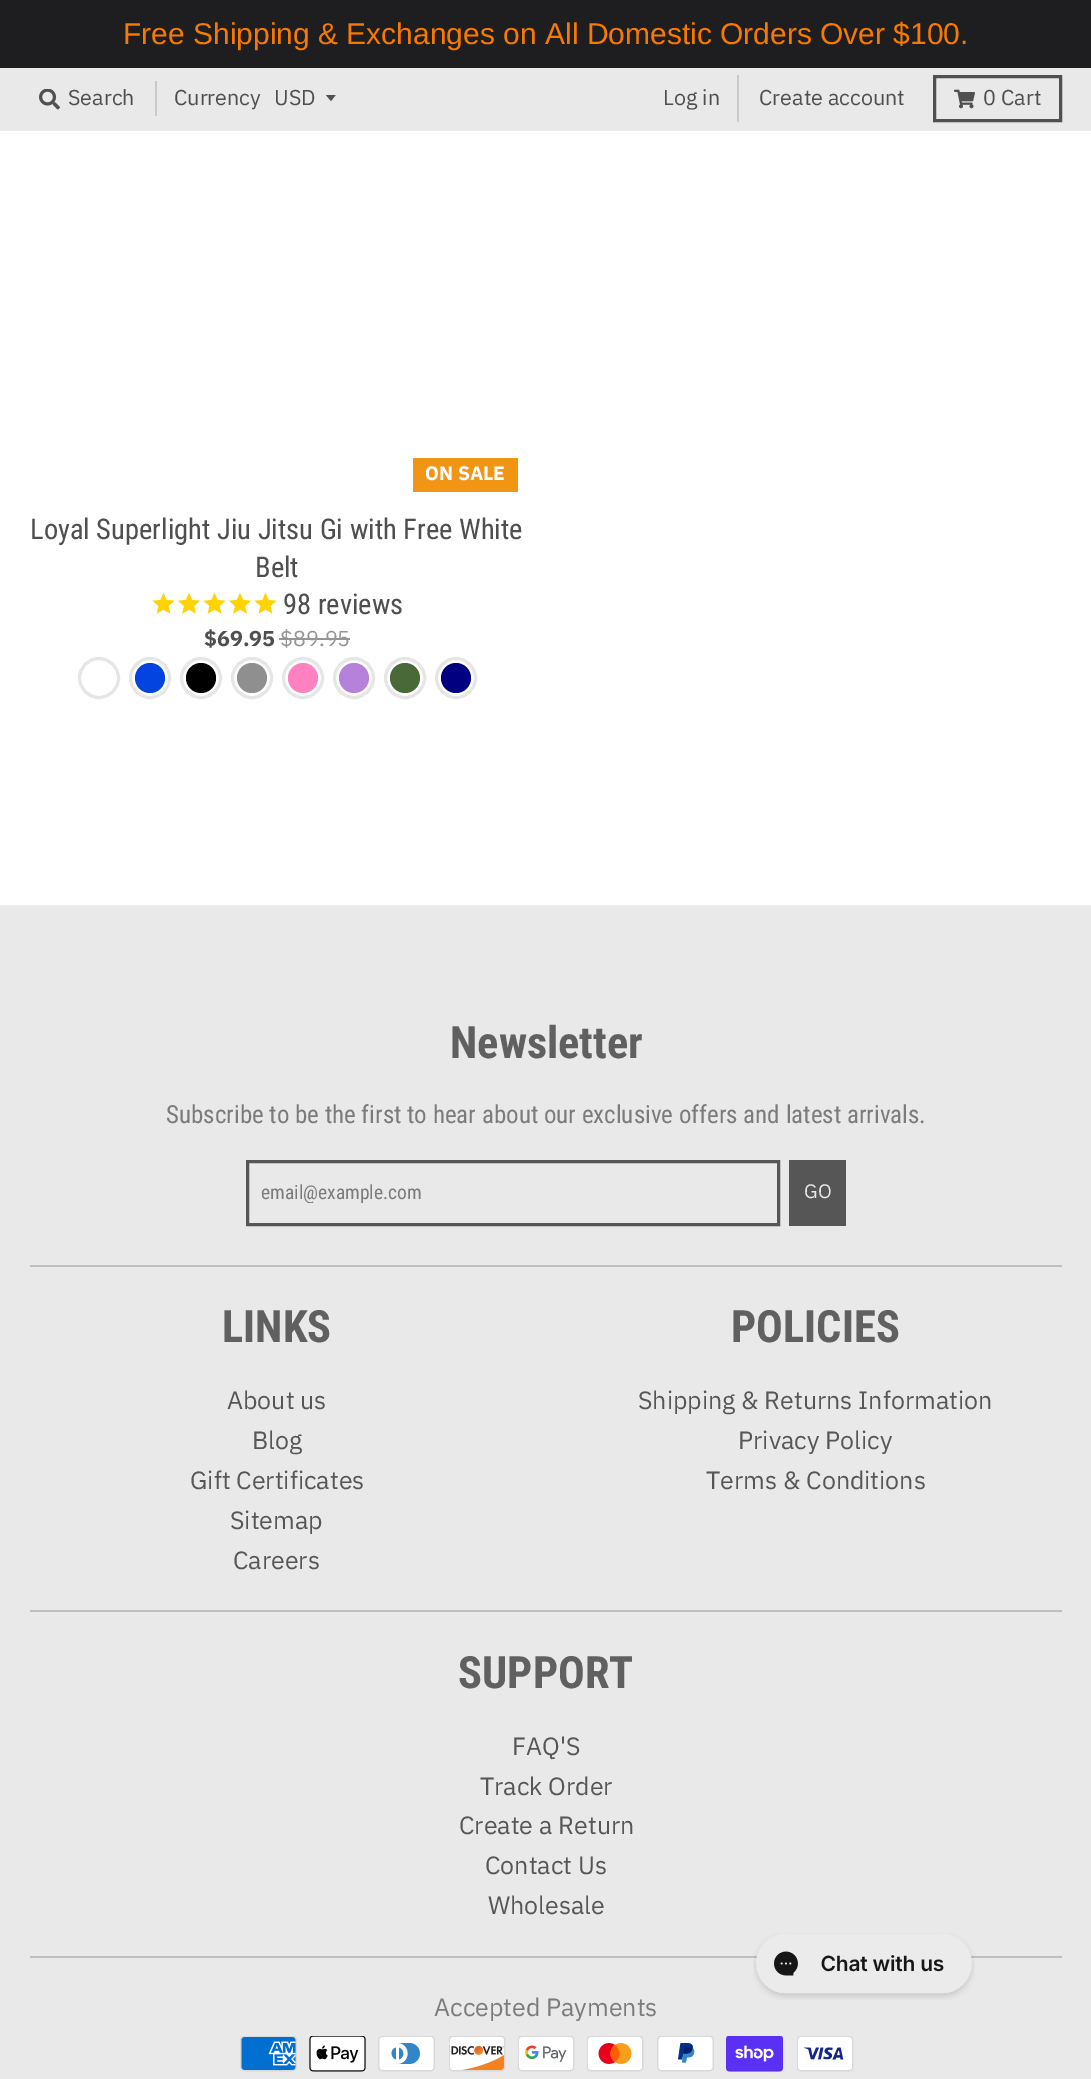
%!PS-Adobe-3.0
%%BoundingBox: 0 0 1091 2079
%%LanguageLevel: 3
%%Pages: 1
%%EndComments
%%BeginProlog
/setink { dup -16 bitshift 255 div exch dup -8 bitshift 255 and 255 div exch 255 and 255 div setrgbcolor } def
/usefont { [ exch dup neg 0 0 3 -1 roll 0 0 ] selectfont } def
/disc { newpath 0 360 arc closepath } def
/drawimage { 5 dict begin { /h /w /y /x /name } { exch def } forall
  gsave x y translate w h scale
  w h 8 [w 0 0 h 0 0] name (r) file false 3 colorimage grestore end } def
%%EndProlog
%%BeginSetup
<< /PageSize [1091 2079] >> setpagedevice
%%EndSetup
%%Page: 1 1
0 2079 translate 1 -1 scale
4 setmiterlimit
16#FFFFFF setink
0 0 1091 2079 rectfill
16#1E1E20 setink
0 0 1091 68 rectfill
/LiberationSans-Regular 30 usefont
16#F77900 setink
123 44 moveto (Free Shipping & Exchanges on All Domestic Orders Over $100.) show
16#E9E9E9 setink
0 68 1091 63 rectfill
(img1.raw) 39 89 21 21 drawimage
/IBMPlexSans-Regular 21.5 usefont
16#4F4F4F setink
68 105 moveto (Search) show
16#CACACA setink
155 81 2 35 rectfill
16#4F4F4F setink
174 105 moveto (Currency) show
gsave
326 95 12 7 rectclip
16#505050 setink
325.5 94.5 moveto 331 101 lineto 336 94.5 lineto closepath fill
grestore
274 105 moveto (USD) show
16#CACACA setink
737 75 2 47 rectfill
16#4F4F4F setink
663 105 moveto (Log in) show
759 105 moveto (Create account) show
16#505050 setink
3 setlinewidth
934.5 76.5 126 44 rectstroke
(img2.raw) 954 89 21 20 drawimage
16#4F4F4F setink
983 105 moveto (0 Cart) show
16#EDEDED setink
0 905 1091 1 rectfill
16#F09514 setink
413 458 105 34 rectfill
/IBMPlexSans-Bold 19.5 usefont
16#FFFFFF setink
425 480 moveto (ON SALE) show
/RobotoCondensed-Regular 28.5 usefont
16#4F4F4F setink
30 539 moveto (Loyal Superlight Jiu Jitsu Gi with Free White) show
255 577 moveto (Belt) show
(img3.raw) 152 592 23 22 drawimage
(img4.raw) 177 592 24 22 drawimage
(img3.raw) 203 592 23 22 drawimage
(img4.raw) 228 592 24 22 drawimage
(img3.raw) 254 592 23 22 drawimage
283 614 moveto (98 reviews) show
/IBMPlexSans-Bold 21.5 usefont
204 646 moveto ($69.95) show
/IBMPlexSans-Regular 21.5 usefont
16#959595 setink
280 646 moveto ($89.95) show
279 638 71 2 rectfill
16#E6E6E6 setink
99 678 19.5 disc stroke
150 678 19.5 disc stroke
16#0343DF setink
150 678 15 disc fill
16#E6E6E6 setink
201 678 19.5 disc stroke
16#000000 setink
201 678 15 disc fill
16#E6E6E6 setink
252 678 19.5 disc stroke
16#8F8F8F setink
252 678 15 disc fill
16#E6E6E6 setink
303 678 19.5 disc stroke
16#FF81C0 setink
303 678 15 disc fill
16#E6E6E6 setink
354 678 19.5 disc stroke
16#B681DB setink
354 678 15 disc fill
16#E6E6E6 setink
405 678 19.5 disc stroke
16#496938 setink
405 678 15 disc fill
16#E6E6E6 setink
456 678 19.5 disc stroke
16#000080 setink
456 678 15 disc fill
16#E9E9E9 setink
0 906 1091 1173 rectfill
/RobotoCondensed-Bold 44.5 usefont
16#606060 setink
450 1058 moveto (Newsletter) show
/RobotoCondensed-Regular 24.95 usefont
16#7B7B7B setink
166 1123 moveto (Subscribe to be the first to hear about our exclusive offers and latest arrivals.) show
16#BFBFBF setink
30 1265 1032 2 rectfill
16#565656 setink
247.5 1161.5 531 63 rectstroke
gsave
261 1181 504 22 rectclip
/RobotoCondensed-Regular 19.5 usefont
16#7B7B7B setink
261 1199 moveto (email@example.com) show
grestore
789 1160 57 66 rectfill
/IBMPlexSans-Regular 19.5 usefont
16#E9E9E9 setink
804 1198 moveto (GO) show
/RobotoCondensed-Bold 44.5 usefont
16#606060 setink
222 1342 moveto (LINKS) show
/IBMPlexSans-Regular 24.95 usefont
16#565656 setink
[
    [(About us) 227 1409]
    [(Blog) 252 1449]
    [(Gift Certificates) 190 1489]
    [(Sitemap) 230 1529]
    [(Careers) 233 1569]
] { aload pop moveto show } forall
/RobotoCondensed-Bold 44.5 usefont
16#606060 setink
731 1342 moveto (POLICIES) show
/IBMPlexSans-Regular 24.95 usefont
16#565656 setink
[
    [(Shipping & Returns Information) 638 1409]
    [(Privacy Policy) 738 1449]
    [(Terms & Conditions) 706 1489]
] { aload pop moveto show } forall
16#BFBFBF setink
30 1610 1032 2 rectfill
/RobotoCondensed-Bold 44.5 usefont
16#606060 setink
458 1688 moveto (SUPPORT) show
/IBMPlexSans-Regular 24.95 usefont
16#565656 setink
[
    [(FAQ'S) 512 1755]
    [(Track Order) 480 1795]
    [(Create a Return) 459 1834]
    [(Contact Us) 485 1874]
    [(Wholesale) 488 1914]
] { aload pop moveto show } forall
16#BFBFBF setink
30 1956 1032 2 rectfill
16#7B7B7B setink
434 2016 moveto (Accepted Payments) show
(img5.raw) 240 2036 57 36 drawimage
(img6.raw) 309 2036 57 36 drawimage
(img7.raw) 378 2036 57 36 drawimage
(img8.raw) 449 2036 57 36 drawimage
(img9.raw) 518 2036 57 36 drawimage
(img10.raw) 587 2036 57 36 drawimage
(img11.raw) 657 2036 57 36 drawimage
(img12.raw) 726 2036 57 36 drawimage
(img13.raw) 797 2036 57 36 drawimage
(img14.raw) 753 1933 222 67 drawimage
showpage
%%EOF
